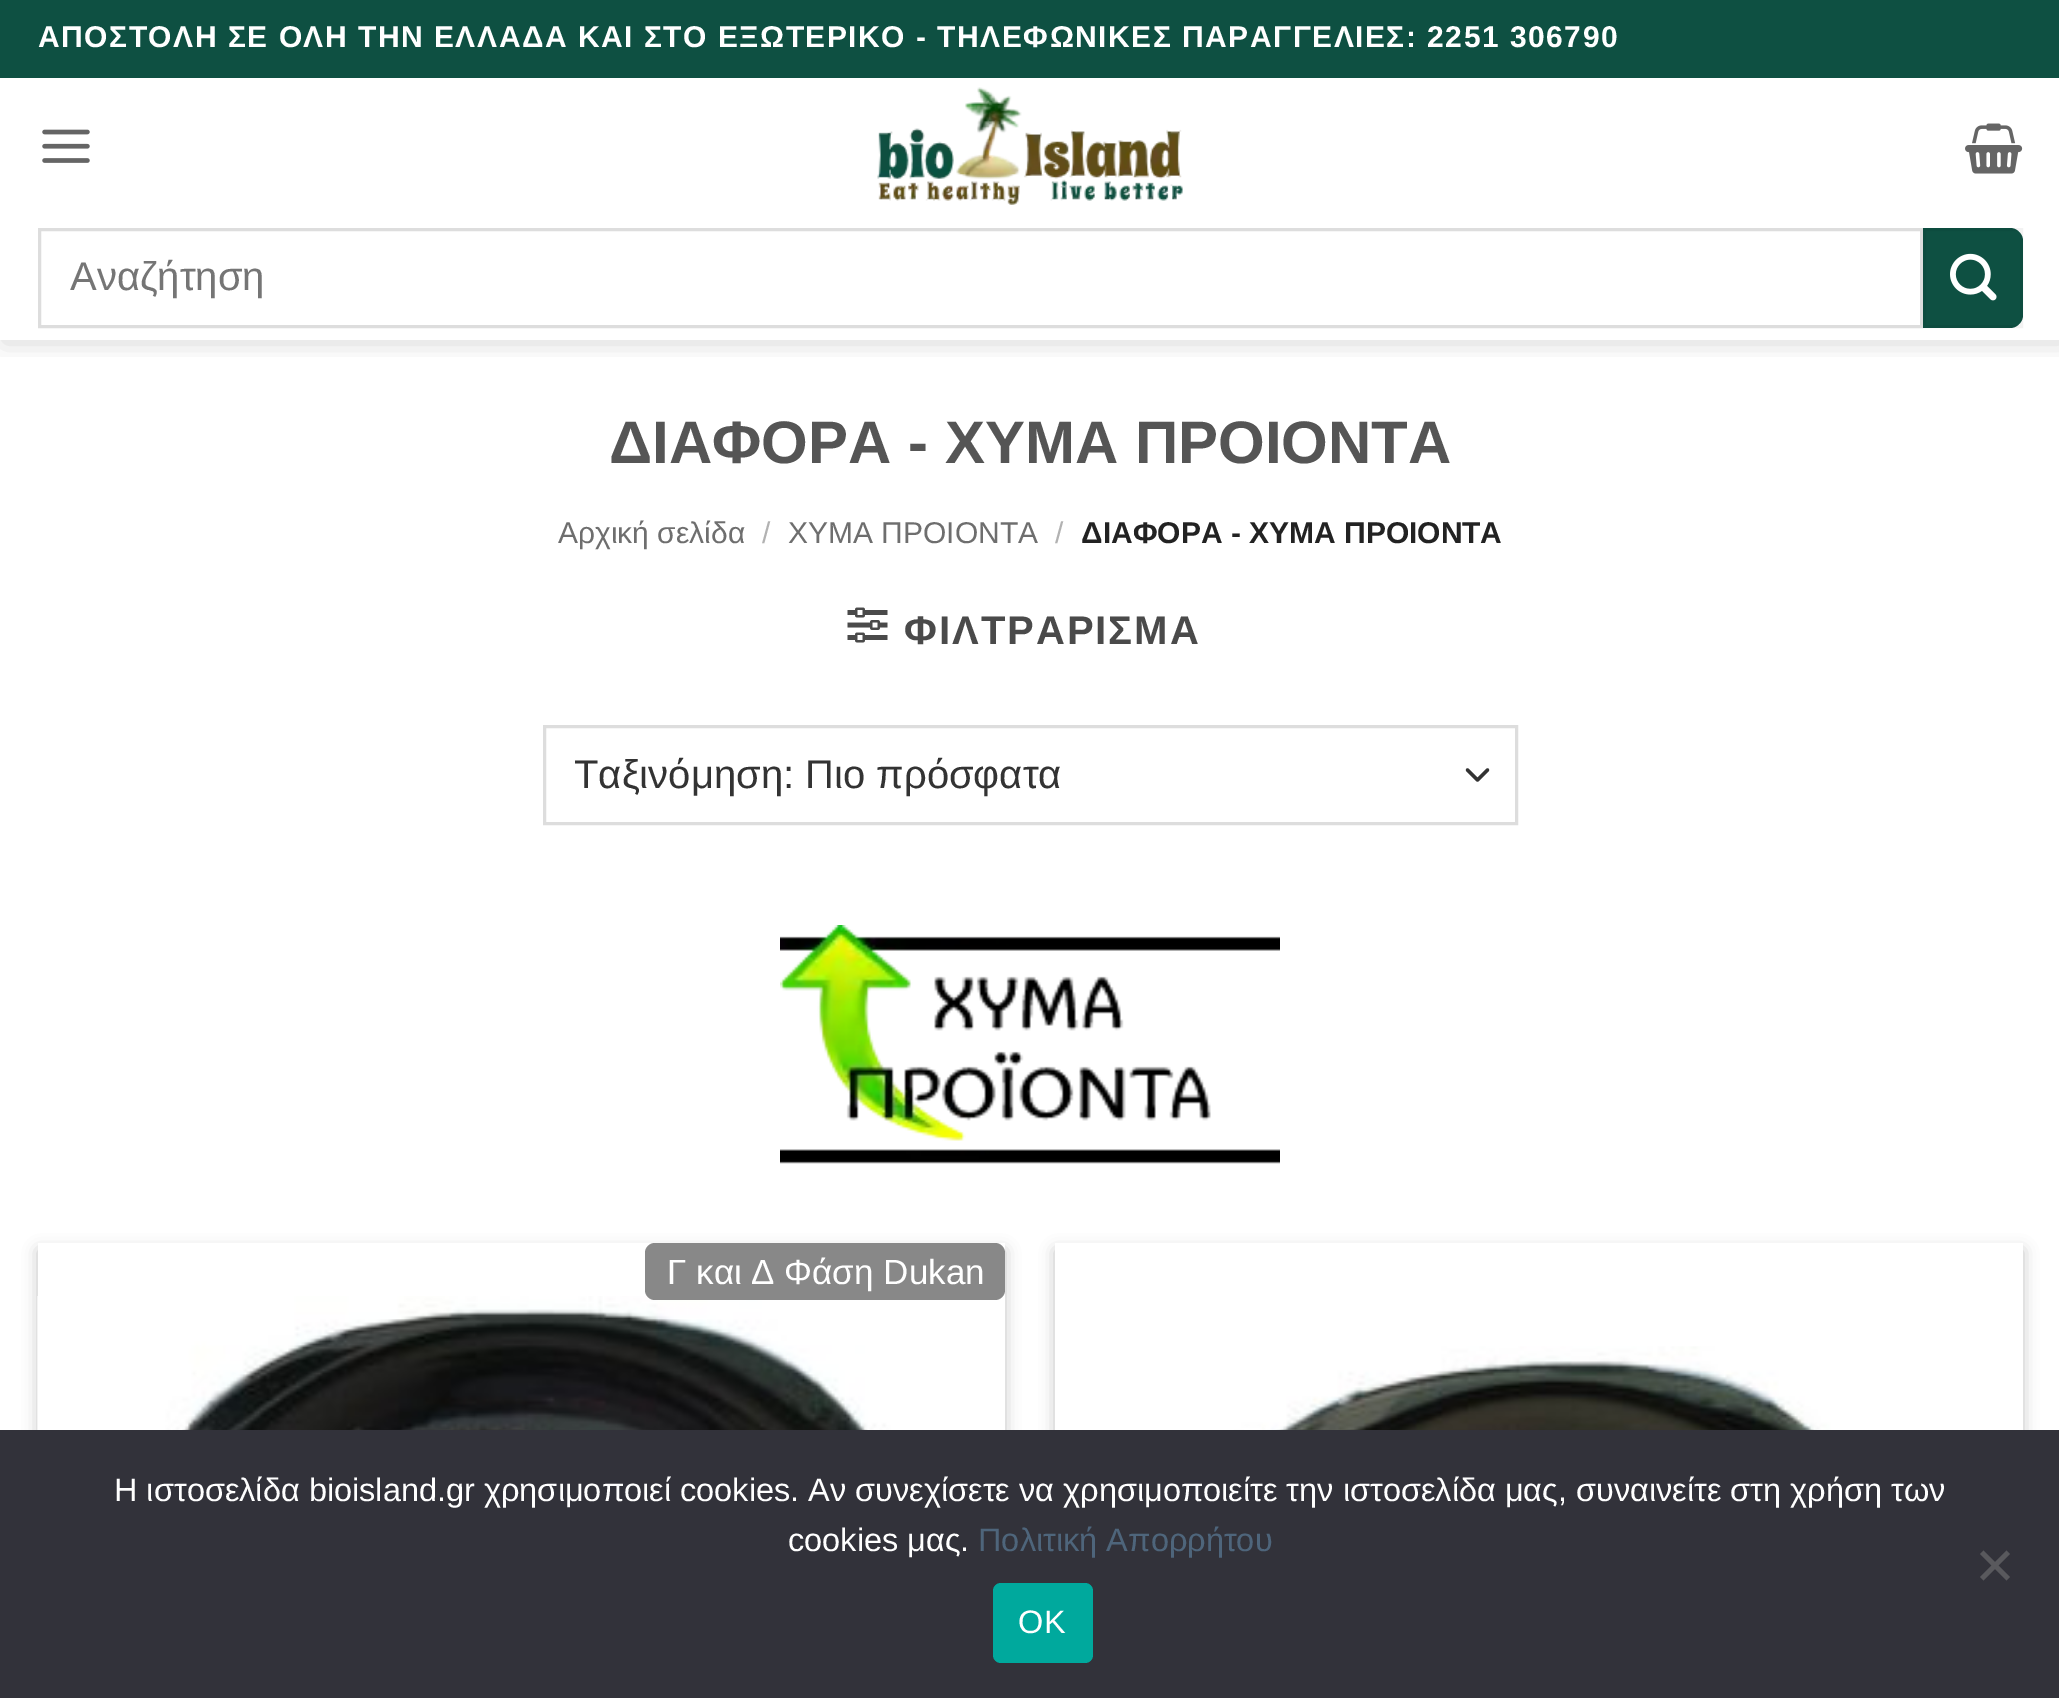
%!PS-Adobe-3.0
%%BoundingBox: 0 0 2059 1698
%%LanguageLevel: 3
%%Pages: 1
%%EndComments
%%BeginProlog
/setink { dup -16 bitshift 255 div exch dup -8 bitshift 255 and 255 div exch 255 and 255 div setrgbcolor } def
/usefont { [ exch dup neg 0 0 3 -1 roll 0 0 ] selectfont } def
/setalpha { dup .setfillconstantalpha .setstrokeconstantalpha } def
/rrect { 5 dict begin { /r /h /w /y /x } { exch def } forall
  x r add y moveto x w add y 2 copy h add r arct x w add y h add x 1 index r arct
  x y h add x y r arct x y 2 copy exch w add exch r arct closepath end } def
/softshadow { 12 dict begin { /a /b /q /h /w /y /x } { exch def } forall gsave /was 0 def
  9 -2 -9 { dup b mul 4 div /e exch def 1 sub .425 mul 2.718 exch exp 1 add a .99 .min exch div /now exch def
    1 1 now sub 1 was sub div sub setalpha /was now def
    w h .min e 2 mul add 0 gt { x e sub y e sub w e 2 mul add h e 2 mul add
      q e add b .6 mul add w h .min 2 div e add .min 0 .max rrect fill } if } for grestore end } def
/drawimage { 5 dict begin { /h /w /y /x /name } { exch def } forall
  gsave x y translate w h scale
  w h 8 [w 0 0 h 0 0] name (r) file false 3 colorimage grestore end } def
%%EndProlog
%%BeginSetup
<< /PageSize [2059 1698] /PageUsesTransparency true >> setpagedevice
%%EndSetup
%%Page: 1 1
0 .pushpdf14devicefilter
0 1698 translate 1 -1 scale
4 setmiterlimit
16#FFFFFF setink
0 0 2059 1698 rectfill
gsave
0 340 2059 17 rectclip
16#000000 setink
3 3 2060 340 0 12.5 0.15 softshadow
grestore
16#0E5042 setink
0 0 2059 78 rectfill
/LiberationSans-Bold 30 usefont
16#FFFFFF setink
38 47 moveto 1.5 0 (ΑΠΟΣΤΟΛΗ ΣΕ ΟΛΗ ΤΗΝ ΕΛΛΑΔΑ ΚΑΙ ΣΤΟ ΕΞΩΤΕΡΙΚΟ - ΤΗΛΕΦΩΝΙΚΕΣ ΠΑΡΑΓΓΕΛΙΕΣ: 2251 306790) ashow
(img1.raw) 42 129 48 34 drawimage
(img2.raw) 877 87 306 118 drawimage
(img3.raw) 1965 123 58 51 drawimage
16#DDDDDD setink
3 setlinewidth
39.5 229.5 1882 97 rectstroke
/LiberationSans-Regular 40 usefont
16#757575 setink
70 290 moveto (Αναζήτηση) show
16#0E5042 setink
1923 228 moveto 2010 228 lineto 2017 228 2023 234 2023 241 curveto 2023 315 lineto 2023 322 2017 328 2010 328 curveto 1923 328 lineto closepath fill
0.05 setalpha
16#000000 setink
1924.5 229.5 97 97 rectstroke
1 setalpha
(img4.raw) 1950 253 47 48 drawimage
/LiberationSans-Bold 60 usefont
16#555555 setink
609 463 moveto (ΔΙΑΦΟΡΑ - ΧΥΜΑ ΠΡΟΙΟΝΤΑ) show
/LiberationSans-Regular 30 usefont
16#6E6E6E setink
558 543 moveto (Αρχική σελίδα) show
16#B2B2B2 setink
762 543 moveto (/) show
16#6E6E6E setink
788 543 moveto (ΧΥΜΑ ΠΡΟΙΟΝΤΑ) show
16#B2B2B2 setink
1055 543 moveto (/) show
/LiberationSans-Bold 30 usefont
16#222222 setink
1081 543 moveto (ΔΙΑΦΟΡΑ - ΧΥΜΑ ΠΡΟΙΟΝΤΑ) show
(img5.raw) 847 607 41 36 drawimage
/LiberationSans-Bold 40 usefont
16#4A4A4A setink
904 644 moveto 2 0 (ΦΙΛΤΡΑΡΙΣΜΑ) ashow
16#333333 setink
3.3 setlinewidth
1 setlinecap
1 setlinejoin
1467.5 770 moveto 1477.5 780 lineto 1487.5 770 lineto stroke
16#DDDDDD setink
3 setlinewidth
0 setlinecap
0 setlinejoin
544.5 726.5 972 97 rectstroke
/LiberationSans-Regular 40 usefont
16#333333 setink
574 788 moveto (Ταξινόμηση: Πιο πρόσφατα) show
(img6.raw) 780 925 500 239 drawimage
gsave
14 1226 moveto 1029 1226 lineto 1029 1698 lineto 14 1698 lineto closepath 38 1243 moveto 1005 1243 lineto 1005 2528 lineto 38 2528 lineto closepath eoclip newpath
16#000000 setink
38 1250 967 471 0 7.5 0.23 softshadow
grestore
(img7.raw) 37 1296 905 134 drawimage
16#888888 setink
645 1243 360 57 10 rrect fill
/LiberationSans-Regular 35 usefont
16#FFFFFF setink
667 1284 moveto (Γ και Δ Φάση Dukan) show
16#000000 setink
1055 1250 968 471 0 7.5 0.23 softshadow
16#FFFFFF setink
1055 1243 968 187 rectfill
(img8.raw) 1055 1346 867 84 drawimage
16#32323A setink
0 1430 2059 268 rectfill
/LiberationSans-Regular 32.5 usefont
16#FFFFFF setink
114 1501 moveto (Η ιστοσελίδα bioisland.gr χρησιμοποιεί cookies. Αν συνεχίσετε να χρησιμοποιείτε την ιστοσελίδα μας, συναινείτε στη χρήση των) show
788 1551 moveto (cookies μας.) show
16#4E657B setink
978 1551 moveto (Πολιτική Απορρήτου) show
16#59595D setink
2006.5 1550.5 moveto 2010 1554 lineto 1983.5 1580.5 lineto 1980 1577 lineto closepath fill
1980 1554 moveto 1983.5 1550.5 lineto 2010 1577 lineto 2006.5 1580.5 lineto closepath fill
16#00A99D setink
993 1583 100 80 8 rrect fill
16#FFFFFF setink
1018 1633 moveto 1 0 (ΟΚ) ashow
.poppdf14devicefilter showpage
%%EOF
